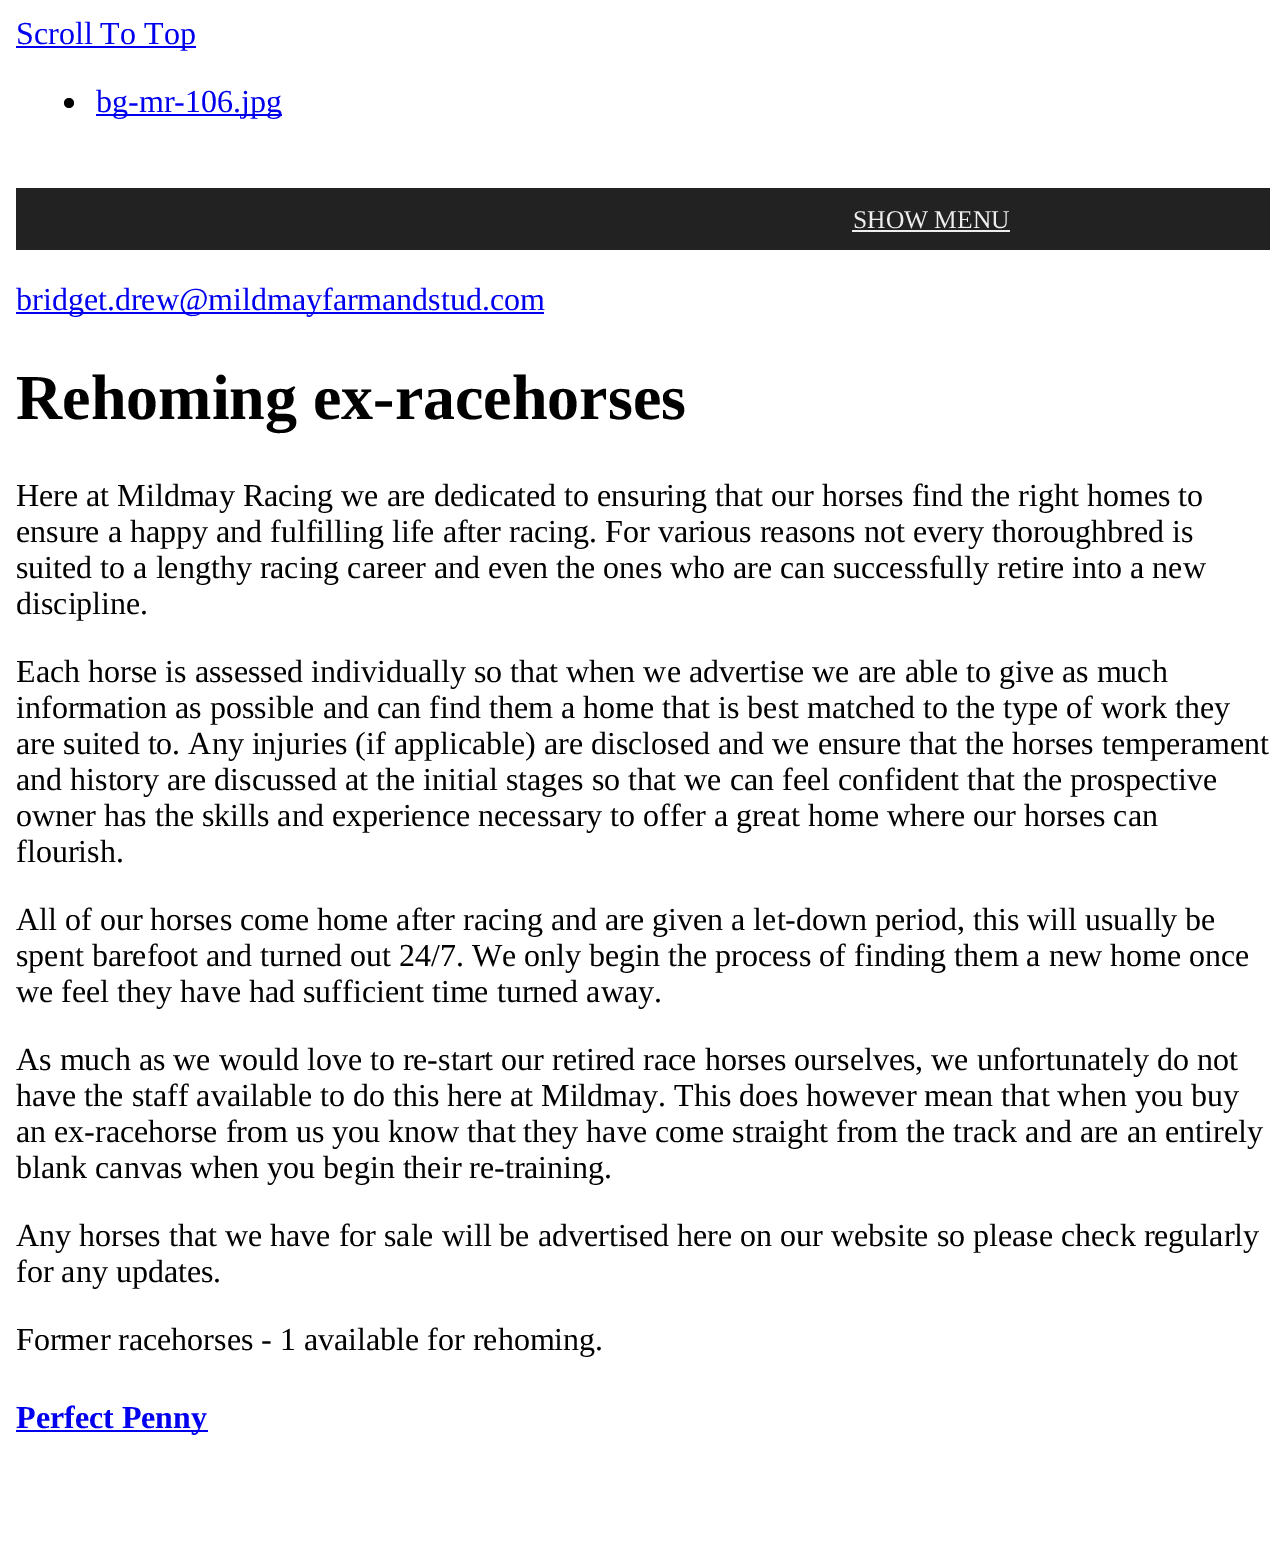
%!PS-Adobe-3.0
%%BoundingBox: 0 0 1285 1552
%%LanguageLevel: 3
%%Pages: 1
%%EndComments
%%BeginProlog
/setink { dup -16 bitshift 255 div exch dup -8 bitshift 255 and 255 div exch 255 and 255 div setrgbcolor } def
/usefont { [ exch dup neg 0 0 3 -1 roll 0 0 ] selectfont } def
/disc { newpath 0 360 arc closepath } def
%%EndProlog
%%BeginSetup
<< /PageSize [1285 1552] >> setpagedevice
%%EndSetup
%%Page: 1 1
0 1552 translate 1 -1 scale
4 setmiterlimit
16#FFFFFF setink
0 0 1285 1552 rectfill
16#0000EE setink
16 46 180 2 rectfill
/LiberationSerif-Regular 32 usefont
16 44 moveto (Scroll To Top) show
16#000000 setink
69 103 5 disc fill
16#0000EE setink
96 114 186 2 rectfill
96 112 moveto (bg-mr-106.jpg) show
16#222222 setink
16 188 1254 62 rectfill
/LiberationSerif-Regular 25.5 usefont
16#EEEEEE setink
853 228 moveto (SHOW MENU) show
852 230 158 2 rectfill
16#0000EE setink
16 312 528 2 rectfill
/LiberationSerif-Regular 32 usefont
16 310 moveto (bridget.drew@mildmayfarmandstud.com) show
/LiberationSerif-Bold 64 usefont
16#000000 setink
16 419 moveto (Rehoming ex-racehorses) show
/LiberationSerif-Regular 32 usefont
[
    [(Here at Mildmay Racing we are dedicated to ensuring that our horses find the right homes to) 16 506]
    [(ensure a happy and fulfilling life after racing. For various reasons not every thoroughbred is) 16 542]
    [(suited to a lengthy racing career and even the ones who are can successfully retire into a new) 16 578]
    [(discipline.) 16 614]
    [(Each horse is assessed individually so that when we advertise we are able to give as much) 16 682]
    [(information as possible and can find them a home that is best matched to the type of work they) 16 718]
    [(are suited to. Any injuries \(if applicable\) are disclosed and we ensure that the horses temperament) 16 754]
    [(and history are discussed at the initial stages so that we can feel confident that the prospective) 16 790]
    [(owner has the skills and experience necessary to offer a great home where our horses can) 16 826]
    [(flourish.) 16 862]
    [(All of our horses come home after racing and are given a let-down period, this will usually be) 16 930]
    [(spent barefoot and turned out 24/7. We only begin the process of finding them a new home once) 16 966]
    [(we feel they have had sufficient time turned away.) 16 1002]
    [(As much as we would love to re-start our retired race horses ourselves, we unfortunately do not) 16 1070]
    [(have the staff available to do this here at Mildmay. This does however mean that when you buy) 16 1106]
    [(an ex-racehorse from us you know that they have come straight from the track and are an entirely) 16 1142]
    [(blank canvas when you begin their re-training.) 16 1178]
    [(Any horses that we have for sale will be advertised here on our website so please check regularly) 16 1246]
    [(for any updates.) 16 1282]
    [(Former racehorses - 1 available for rehoming.) 16 1350]
] { aload pop moveto show } forall
16#0000EE setink
16 1430 192 2 rectfill
/LiberationSerif-Bold 32 usefont
16 1428 moveto (Perfect Penny) show
showpage
%%EOF
